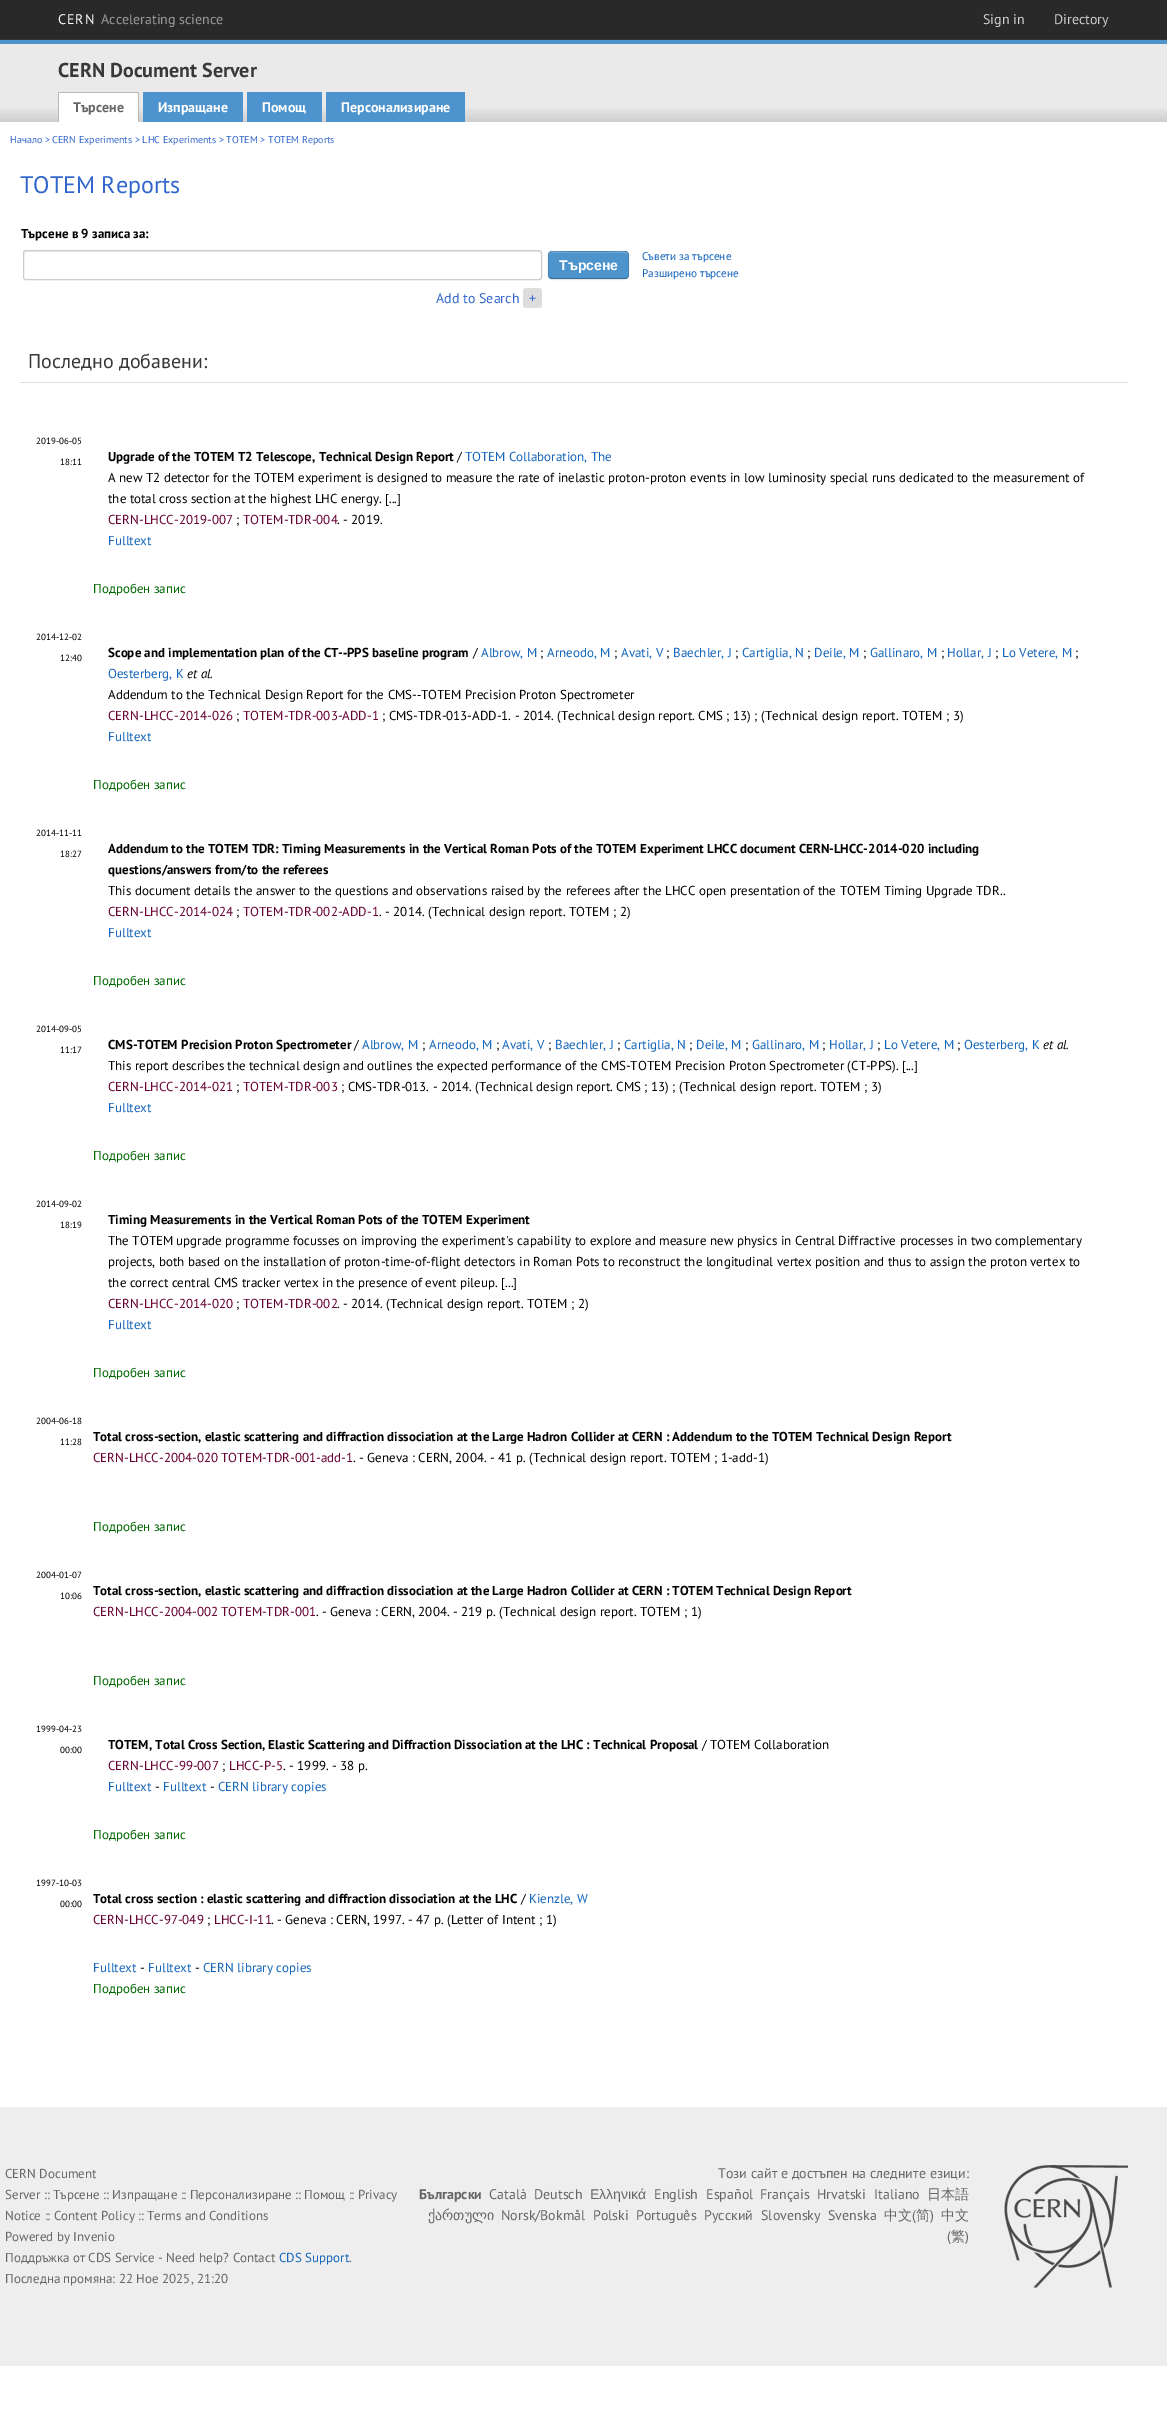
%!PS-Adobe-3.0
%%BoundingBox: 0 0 1167 2427
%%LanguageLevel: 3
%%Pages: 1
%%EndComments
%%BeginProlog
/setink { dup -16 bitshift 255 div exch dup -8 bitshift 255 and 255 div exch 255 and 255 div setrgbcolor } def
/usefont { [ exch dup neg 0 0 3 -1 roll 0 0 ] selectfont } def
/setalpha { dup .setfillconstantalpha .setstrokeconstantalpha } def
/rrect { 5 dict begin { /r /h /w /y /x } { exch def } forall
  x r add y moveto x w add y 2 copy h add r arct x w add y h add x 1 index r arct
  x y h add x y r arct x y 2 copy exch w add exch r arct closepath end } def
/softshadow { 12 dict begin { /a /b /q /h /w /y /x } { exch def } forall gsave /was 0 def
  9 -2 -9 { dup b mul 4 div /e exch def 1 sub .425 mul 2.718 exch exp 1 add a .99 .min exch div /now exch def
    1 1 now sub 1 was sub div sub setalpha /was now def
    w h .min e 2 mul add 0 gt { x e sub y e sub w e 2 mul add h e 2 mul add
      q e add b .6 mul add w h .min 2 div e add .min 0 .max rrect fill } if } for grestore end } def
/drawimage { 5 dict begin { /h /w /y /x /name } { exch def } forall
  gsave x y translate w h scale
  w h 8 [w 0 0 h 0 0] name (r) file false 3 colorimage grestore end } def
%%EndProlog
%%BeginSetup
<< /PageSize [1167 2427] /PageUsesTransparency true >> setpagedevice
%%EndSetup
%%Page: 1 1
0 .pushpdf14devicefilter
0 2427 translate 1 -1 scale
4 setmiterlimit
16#FFFFFF setink
0 0 1167 2427 rectfill
16#292929 setink
0 0 1167 39 rectfill
16#353535 setink
0 39 1167 1 rectfill
/PTSans-Regular 14 usefont
16#FFFFFF setink
58 24 moveto 1 0 (CERN) ashow
16#999999 setink
101 24 moveto (Accelerating science) show
16#CCCCCC setink
983 24 moveto (Sign in) show
1054 24 moveto (Directory) show
16#EAEAEA setink
0 44 1167 78 rectfill
(img1.raw) 0 108 1167 14 drawimage
16#4D94CC setink
0 40 1167 4 rectfill
/PTSans-Bold 20 usefont
16#383838 setink
58 77 moveto (CERN Document Server) show
[
    [59 93 79 29 16#FFFFFF]
    [58 92 81 1 16#B8B8B8]
    [138 92 1 30 16#B8B8B8]
    [58 92 1 30 16#B8B8B8]
] { aload pop setink rectfill } forall
/PTSans-Bold 14 usefont
16#666666 setink
73 112 moveto (Търсене) show
16#4D94CE setink
143 92 100 30 rectfill
16#FFFFFF setink
158 112 moveto (Изпращане) show
16#4D94CE setink
247 92 75 30 rectfill
16#FFFFFF setink
262 112 moveto (Помощ) show
16#4D94CE setink
326 92 139 30 rectfill
16#FFFFFF setink
341 112 moveto (Персонализиране) show
/PTSans-Regular 10 usefont
16#3366CC setink
10 143 moveto (Начало > CERN Experiments > LHC Experiments > TOTEM > TOTEM Reports) show
/PTSans-Regular 24 usefont
20 193 moveto (TOTEM Reports) show
/PTSans-Bold 13 usefont
16#000000 setink
21 238 moveto (Търсене в 9 записа за:) show
16#ECECEC setink
26 252 moveto 539 252 lineto 540 252 541 253 541 254 curveto 541 253 541 251 539 251 curveto 26 251 lineto 24 252 lineto 24 254 lineto 24 253 25 252 26 252 curveto closepath fill
16#CCCCCC setink
23.5 250.5 518 29 2.5 rrect stroke
16#000000 setink
548 252 81 28 4 1 0.05 softshadow
16#4D94CC setink
548 251 81 28 4 rrect fill
16#71A9D6 setink
552 253 moveto 625 253 lineto 627 253 628 254 628 256 curveto 628 249 617 252 613 252 curveto 564 252 lineto 560 252 549 249 549 256 curveto 549 254 550 253 552 253 curveto closepath fill
0.25 setalpha
16#000000 setink
627.5 277.5 moveto 627 278 626 278.5 625 278.5 curveto 552 278.5 lineto 551 278.5 550 278 549.5 277.5 curveto stroke
0.1 setalpha
549.5 277.5 moveto 547.5 275.5 548.5 271 548.5 268.5 curveto 548.5 249.5 545 251.5 564 251.5 curveto 613 251.5 lineto 630 251.5 628.5 249 628.5 265 curveto 628.5 267.5 629.5 275 627.5 277.5 curveto stroke
/LiberationSans-Bold 14 usefont
1 setalpha
16#FFFFFF setink
559 270 moveto (Търсене) show
/PTSans-Regular 11.25 usefont
16#1565BA setink
642 260 moveto (Съвети за търсене) show
642 277 moveto (Разширено търсене) show
/PTSans-Regular 14 usefont
16#3366CC setink
436 303 moveto (Add to Search) show
16#DDDDDD setink
523 288 19 20 3 rrect fill
16#3366CC setink
529 303 moveto (+) show
16#DDDDDD setink
20 382 1108 1 rectfill
/PTSans-Regular 20 usefont
16#383838 setink
28 368 moveto (Последно добавени:) show
/PTSans-Regular 9 usefont
16#000000 setink
36 444 moveto (2019-06-05) show
60 465 moveto (18:11) show
/PTSans-Bold 13 usefont
108 461 moveto (Upgrade of the TOTEM T2 Telescope, Technical Design Report) show
/PTSans-Regular 13 usefont
457 461 moveto (/) show
16#1565BA setink
465 461 moveto (TOTEM Collaboration, The) show
16#000000 setink
108 482 moveto (A new T2 detector for the TOTEM experiment is designed to measure the rate of inelastic proton-proton events in low luminosity special runs dedicated to the measurement of) show
108 503 moveto (the total cross section at the highest LHC energy. [...]) show
16#660033 setink
108 524 moveto (CERN-LHCC-2019-007) show
16#000000 setink
236 524 moveto (;) show
16#660033 setink
243 524 moveto (TOTEM-TDR-004) show
16#000000 setink
337 524 moveto (. - 2019.) show
16#1565BA setink
108 545 moveto (Fulltext) show
16#006600 setink
93 593 moveto (Подробен запис) show
/PTSans-Regular 9 usefont
16#000000 setink
36 640 moveto (2014-12-02) show
60 661 moveto (12:40) show
/PTSans-Bold 13 usefont
108 657 moveto (Scope and implementation plan of the CT-) show
/LiberationSans-Bold 13 usefont
343 657 moveto (‐) show
/PTSans-Bold 13 usefont
347 657 moveto (PPS baseline program) show
/PTSans-Regular 13 usefont
473 657 moveto (/) show
16#1565BA setink
481 657 moveto (Albrow, M) show
16#000000 setink
540 657 moveto (;) show
16#1565BA setink
547 657 moveto (Arneodo, M) show
16#000000 setink
614 657 moveto (;) show
16#1565BA setink
621 657 moveto (Avati, V) show
16#000000 setink
666 657 moveto (;) show
16#1565BA setink
673 657 moveto (Baechler, J) show
16#000000 setink
735 657 moveto (;) show
16#1565BA setink
742 657 moveto (Cartiglia, N) show
16#000000 setink
807 657 moveto (;) show
16#1565BA setink
814 657 moveto (Deile, M) show
16#000000 setink
863 657 moveto (;) show
16#1565BA setink
870 657 moveto (Gallinaro, M) show
16#000000 setink
941 657 moveto (;) show
16#1565BA setink
947 657 moveto (Hollar, J) show
16#000000 setink
995 657 moveto (;) show
16#1565BA setink
1002 657 moveto (Lo Vetere, M) show
16#000000 setink
1075 657 moveto (;) show
16#1565BA setink
108 678 moveto (Oesterberg, K) show
/PTSans-Italic 13 usefont
16#000000 setink
187 678 moveto (et al.) show
/PTSans-Regular 13 usefont
108 699 moveto (Addendum to the Technical Design Report for the CMS-) show
/LiberationSans-Regular 13 usefont
417 699 moveto (‐) show
/PTSans-Regular 13 usefont
421 699 moveto (TOTEM Precision Proton Spectrometer) show
16#660033 setink
108 720 moveto (CERN-LHCC-2014-026) show
16#000000 setink
236 720 moveto (;) show
16#660033 setink
243 720 moveto (TOTEM-TDR-003-ADD-1) show
16#000000 setink
382 720 moveto (; CMS-TDR-013-ADD-1. - 2014. \(Technical design report. CMS ; 13\) ; \(Technical design report. TOTEM ; 3\)) show
16#1565BA setink
108 741 moveto (Fulltext) show
16#006600 setink
93 789 moveto (Подробен запис) show
/PTSans-Regular 9 usefont
16#000000 setink
36 836 moveto (2014-11-11) show
60 857 moveto (18:27) show
/PTSans-Bold 13 usefont
108 853 moveto (Addendum to the TOTEM TDR: Timing Measurements in the Vertical Roman Pots of the TOTEM Experiment LHCC document CERN-LHCC-2014-020 including) show
108 874 moveto (questions/answers from/to the referees) show
/PTSans-Regular 13 usefont
108 895 moveto (This document details the answer to the questions and observations raised by the referees after the LHCC open presentation of the TOTEM Timing Upgrade TDR..) show
16#660033 setink
108 916 moveto (CERN-LHCC-2014-024) show
16#000000 setink
236 916 moveto (;) show
16#660033 setink
243 916 moveto (TOTEM-TDR-002-ADD-1) show
16#000000 setink
379 916 moveto (. - 2014. \(Technical design report. TOTEM ; 2\)) show
16#1565BA setink
108 937 moveto (Fulltext) show
16#006600 setink
93 985 moveto (Подробен запис) show
/PTSans-Regular 9 usefont
16#000000 setink
36 1032 moveto (2014-09-05) show
60 1053 moveto (11:17) show
/PTSans-Bold 13 usefont
108 1049 moveto (CMS-TOTEM Precision Proton Spectrometer) show
/PTSans-Regular 13 usefont
354 1049 moveto (/) show
16#1565BA setink
362 1049 moveto (Albrow, M) show
16#000000 setink
422 1049 moveto (;) show
16#1565BA setink
429 1049 moveto (Arneodo, M) show
16#000000 setink
496 1049 moveto (;) show
16#1565BA setink
502 1049 moveto (Avati, V) show
16#000000 setink
548 1049 moveto (;) show
16#1565BA setink
555 1049 moveto (Baechler, J) show
16#000000 setink
617 1049 moveto (;) show
16#1565BA setink
624 1049 moveto (Cartiglia, N) show
16#000000 setink
689 1049 moveto (;) show
16#1565BA setink
696 1049 moveto (Deile, M) show
16#000000 setink
745 1049 moveto (;) show
16#1565BA setink
752 1049 moveto (Gallinaro, M) show
16#000000 setink
822 1049 moveto (;) show
16#1565BA setink
829 1049 moveto (Hollar, J) show
16#000000 setink
877 1049 moveto (;) show
16#1565BA setink
884 1049 moveto (Lo Vetere, M) show
16#000000 setink
957 1049 moveto (;) show
16#1565BA setink
964 1049 moveto (Oesterberg, K) show
/PTSans-Italic 13 usefont
16#000000 setink
1043 1049 moveto (et al.) show
/PTSans-Regular 13 usefont
108 1070 moveto (This report describes the technical design and outlines the expected performance of the CMS-TOTEM Precision Proton Spectrometer \(CT-PPS\). [...]) show
16#660033 setink
108 1091 moveto (CERN-LHCC-2014-021) show
16#000000 setink
236 1091 moveto (;) show
16#660033 setink
243 1091 moveto (TOTEM-TDR-003) show
16#000000 setink
341 1091 moveto (; CMS-TDR-013. - 2014. \(Technical design report. CMS ; 13\) ; \(Technical design report. TOTEM ; 3\)) show
16#1565BA setink
108 1112 moveto (Fulltext) show
16#006600 setink
93 1160 moveto (Подробен запис) show
/PTSans-Regular 9 usefont
16#000000 setink
36 1207 moveto (2014-09-02) show
60 1228 moveto (18:19) show
/PTSans-Bold 13 usefont
108 1224 moveto (Timing Measurements in the Vertical Roman Pots of the TOTEM Experiment) show
/PTSans-Regular 13 usefont
[
    [(The TOTEM upgrade programme focusses on improving the experiment's capability to explore and measure new physics in Central Diffractive processes in two complementary) 108 1245]
    [(projects, both based on the installation of proton-time-of-flight detectors in Roman Pots to reconstruct the longitudinal vertex position and thus to assign the proton vertex to) 108 1266]
    [(the correct central CMS tracker vertex in the presence of event pileup. [...]) 108 1287]
] { aload pop moveto show } forall
16#660033 setink
108 1308 moveto (CERN-LHCC-2014-020) show
16#000000 setink
236 1308 moveto (;) show
16#660033 setink
243 1308 moveto (TOTEM-TDR-002) show
16#000000 setink
337 1308 moveto (. - 2014. \(Technical design report. TOTEM ; 2\)) show
16#1565BA setink
108 1329 moveto (Fulltext) show
16#006600 setink
93 1377 moveto (Подробен запис) show
/PTSans-Regular 9 usefont
16#000000 setink
36 1424 moveto (2004-06-18) show
60 1445 moveto (11:28) show
/PTSans-Bold 13 usefont
93 1441 moveto (Total cross-section, elastic scattering and diffraction dissociation at the Large Hadron Collider at CERN : Addendum to the TOTEM Technical Design Report) show
/PTSans-Regular 13 usefont
16#660033 setink
93 1462 moveto (CERN-LHCC-2004-020 TOTEM-TDR-001-add-1) show
16#000000 setink
353 1462 moveto (. - Geneva : CERN, 2004. - 41 p. \(Technical design report. TOTEM ; 1-add-1\)) show
16#006600 setink
93 1531 moveto (Подробен запис) show
/PTSans-Regular 9 usefont
16#000000 setink
36 1578 moveto (2004-01-07) show
60 1599 moveto (10:06) show
/PTSans-Bold 13 usefont
93 1595 moveto (Total cross-section, elastic scattering and diffraction dissociation at the Large Hadron Collider at CERN : TOTEM Technical Design Report) show
/PTSans-Regular 13 usefont
16#660033 setink
93 1616 moveto (CERN-LHCC-2004-002 TOTEM-TDR-001) show
16#000000 setink
316 1616 moveto (. - Geneva : CERN, 2004. - 219 p. \(Technical design report. TOTEM ; 1\)) show
16#006600 setink
93 1685 moveto (Подробен запис) show
/PTSans-Regular 9 usefont
16#000000 setink
36 1732 moveto (1999-04-23) show
60 1753 moveto (00:00) show
/PTSans-Bold 13 usefont
108 1749 moveto (TOTEM, Total Cross Section, Elastic Scattering and Diffraction Dissociation at the LHC : Technical Proposal) show
/PTSans-Regular 13 usefont
702 1749 moveto (/ TOTEM Collaboration) show
16#660033 setink
108 1770 moveto (CERN-LHCC-99-007) show
16#000000 setink
222 1770 moveto (;) show
16#660033 setink
229 1770 moveto (LHCC-P-5) show
16#000000 setink
283 1770 moveto (. - 1999. - 38 p.) show
16#1565BA setink
108 1791 moveto (Fulltext) show
16#000000 setink
155 1791 moveto (-) show
16#1565BA setink
163 1791 moveto (Fulltext) show
16#000000 setink
210 1791 moveto (-) show
16#1565BA setink
218 1791 moveto (CERN library copies) show
16#006600 setink
93 1839 moveto (Подробен запис) show
/PTSans-Regular 9 usefont
16#000000 setink
36 1886 moveto (1997-10-03) show
60 1907 moveto (00:00) show
/PTSans-Bold 13 usefont
93 1903 moveto (Total cross section : elastic scattering and diffraction dissociation at the LHC) show
/PTSans-Regular 13 usefont
521 1903 moveto (/) show
16#1565BA setink
529 1903 moveto (Kienzle, W) show
16#660033 setink
93 1924 moveto (CERN-LHCC-97-049) show
16#000000 setink
207 1924 moveto (;) show
16#660033 setink
214 1924 moveto (LHCC-I-11) show
16#000000 setink
271 1924 moveto (. - Geneva : CERN, 1997. - 47 p. \(Letter of Intent ; 1\)) show
16#1565BA setink
93 1972 moveto (Fulltext) show
16#000000 setink
140 1972 moveto (-) show
16#1565BA setink
148 1972 moveto (Fulltext) show
16#000000 setink
195 1972 moveto (-) show
16#1565BA setink
203 1972 moveto (CERN library copies) show
16#006600 setink
93 1993 moveto (Подробен запис) show
16#EEEEEE setink
0 2107 1167 259 rectfill
16#666666 setink
[
    [(CERN Document) 5 2178]
    [(Server :: Търсене :: Изпращане :: Персонализиране :: Помощ :: Privacy) 5 2199]
    [(Notice :: Content Policy :: Terms and Conditions) 5 2220]
    [(Powered by Invenio) 5 2241]
    [(Поддръжка от CDS Service - Need help? Contact) 5 2262]
] { aload pop moveto show } forall
16#1565BA setink
279 2262 moveto (CDS Support) show
16#666666 setink
349 2262 moveto (.) show
5 2283 moveto (Последна промяна: 22 Ное 2025, 21:20) show
/PTSans-Regular 14 usefont
718 2178 moveto (Този сайт е достъпен на следните езици:) show
/PTSans-Bold 14 usefont
419 2199 moveto (Български) show
/PTSans-Regular 14 usefont
489 2199 moveto (Català) show
534 2199 moveto (Deutsch) show
/LiberationSans-Regular 14 usefont
590 2199 moveto (Ελληνικά) show
/PTSans-Regular 14 usefont
[
    [(English) 654 2199]
    [(Español) 706 2199]
    [(Français) 760 2199]
    [(Hrvatski) 817 2199]
    [(Italiano) 874 2199]
] { aload pop moveto show } forall
/WenQuanYiZenHei-Medium 14 usefont
927 2199 moveto (日本語) show
/DejaVuSans-Regular 14 usefont
428 2220 moveto (ქართული) show
/PTSans-Regular 14 usefont
[
    [(Norsk/Bokmål) 501 2220]
    [(Polski) 593 2220]
    [(Português) 636 2220]
    [(Русский) 704 2220]
    [(Slovensky) 761 2220]
    [(Svenska) 828 2220]
] { aload pop moveto show } forall
/WenQuanYiZenHei-Medium 14 usefont
884 2220 moveto (中文 简) show
941 2220 moveto (中文) show
/PTSans-Regular 14 usefont
[
    [(\() 912 2220]
    [(\)) 930 2220]
    [(\() 947 2241]
] { aload pop moveto show } forall
/WenQuanYiZenHei-Medium 14 usefont
951 2241 moveto (繁) show
/PTSans-Regular 14 usefont
965 2241 moveto (\)) show
(img2.raw) 1004 2165 124 123 drawimage
.poppdf14devicefilter showpage
%%EOF
